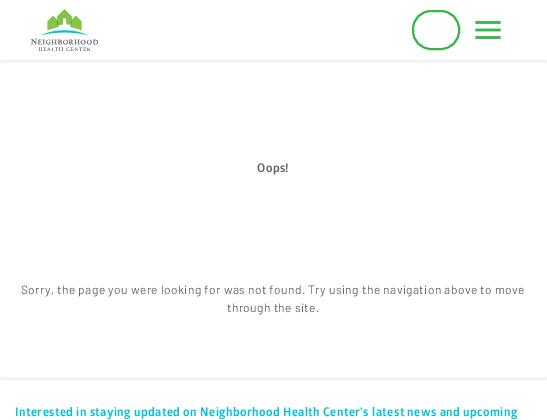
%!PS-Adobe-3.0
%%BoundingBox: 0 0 547 420
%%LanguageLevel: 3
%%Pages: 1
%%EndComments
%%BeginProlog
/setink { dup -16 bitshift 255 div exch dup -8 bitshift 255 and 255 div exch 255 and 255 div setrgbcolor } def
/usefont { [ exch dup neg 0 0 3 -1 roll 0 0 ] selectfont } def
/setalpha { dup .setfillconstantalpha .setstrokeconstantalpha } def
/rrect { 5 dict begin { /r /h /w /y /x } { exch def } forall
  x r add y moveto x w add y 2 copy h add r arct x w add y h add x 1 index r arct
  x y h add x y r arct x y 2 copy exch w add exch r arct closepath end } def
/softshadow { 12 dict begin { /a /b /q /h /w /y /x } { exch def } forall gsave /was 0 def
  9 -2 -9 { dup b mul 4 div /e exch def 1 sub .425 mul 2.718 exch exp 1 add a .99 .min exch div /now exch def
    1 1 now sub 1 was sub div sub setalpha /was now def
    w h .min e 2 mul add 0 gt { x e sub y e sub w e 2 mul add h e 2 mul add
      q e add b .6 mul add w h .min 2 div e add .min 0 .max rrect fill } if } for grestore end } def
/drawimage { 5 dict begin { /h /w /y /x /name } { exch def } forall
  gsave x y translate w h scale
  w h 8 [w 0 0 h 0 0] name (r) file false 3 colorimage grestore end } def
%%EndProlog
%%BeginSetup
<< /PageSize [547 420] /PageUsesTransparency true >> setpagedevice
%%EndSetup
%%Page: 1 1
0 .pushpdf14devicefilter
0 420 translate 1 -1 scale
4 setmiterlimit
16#FFFFFF setink
0 0 547 420 rectfill
gsave
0 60 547 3 rectclip
16#111111 setink
0 2 547 60 0 2 0.07 softshadow
grestore
(img1.raw) 31 9 67 42 drawimage
16#39B54A setink
2 setlinewidth
413 11 46 38 18 rrect stroke
(img2.raw) 475 21 26 18 drawimage
/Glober-Bold 12 usefont
16#666666 setink
257 172 moveto 0.4 0 (Oops!) ashow
/Barlow-Regular 12 usefont
21 294 moveto 0.4 0 (Sorry, the page you were looking for was not found. Try using the navigation above to move) ashow
227 312 moveto 0.4 0 (through the site.) ashow
gsave
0 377 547 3 rectclip
16#111111 setink
0 378 547 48 0 2 0.07 softshadow
grestore
/Glober-Bold 12 usefont
16#03BFD7 setink
15 416 moveto 0.4 0 (Interested in staying updated on Neighborhood Health Center's latest news and upcoming) ashow
.poppdf14devicefilter showpage
%%EOF
